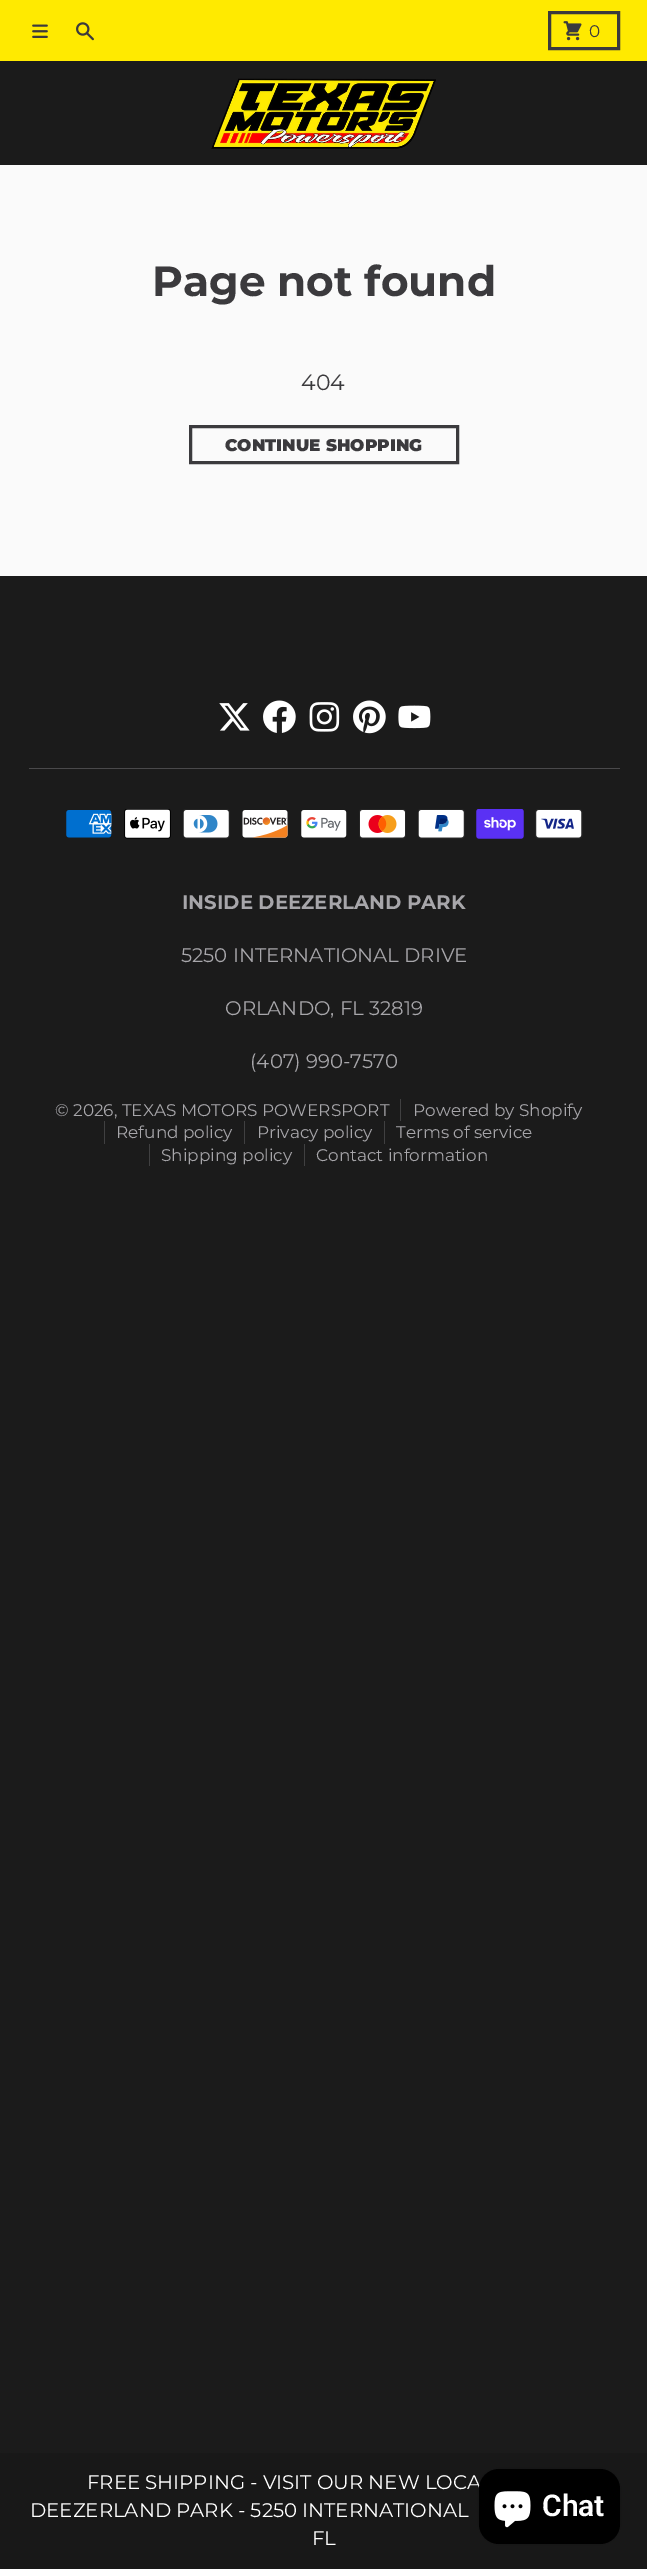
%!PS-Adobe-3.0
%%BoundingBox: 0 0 647 2569
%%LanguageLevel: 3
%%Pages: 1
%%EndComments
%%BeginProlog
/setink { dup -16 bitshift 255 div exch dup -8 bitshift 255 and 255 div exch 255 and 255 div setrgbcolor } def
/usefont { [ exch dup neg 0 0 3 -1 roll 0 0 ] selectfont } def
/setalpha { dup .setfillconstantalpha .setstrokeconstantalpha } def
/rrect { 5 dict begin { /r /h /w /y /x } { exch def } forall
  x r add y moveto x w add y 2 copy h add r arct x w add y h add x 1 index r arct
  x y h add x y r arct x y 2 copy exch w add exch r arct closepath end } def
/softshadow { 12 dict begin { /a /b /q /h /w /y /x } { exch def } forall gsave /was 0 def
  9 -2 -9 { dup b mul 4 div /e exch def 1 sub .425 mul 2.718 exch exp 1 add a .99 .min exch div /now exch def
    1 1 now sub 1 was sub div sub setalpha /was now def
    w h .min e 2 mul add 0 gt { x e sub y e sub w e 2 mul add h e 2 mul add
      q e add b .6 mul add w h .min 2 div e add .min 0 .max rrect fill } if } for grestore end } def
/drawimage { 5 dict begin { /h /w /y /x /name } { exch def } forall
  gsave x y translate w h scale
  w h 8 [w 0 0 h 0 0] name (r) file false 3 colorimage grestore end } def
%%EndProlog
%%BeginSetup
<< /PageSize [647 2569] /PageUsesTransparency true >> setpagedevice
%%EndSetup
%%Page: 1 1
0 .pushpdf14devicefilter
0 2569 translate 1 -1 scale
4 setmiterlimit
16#1B1B1B setink
0 0 647 2569 rectfill
16#FFEA00 setink
0 0 647 61 rectfill
(img1.raw) 32 24 16 14 drawimage
(img2.raw) 76 22 18 19 drawimage
16#3B3A3D setink
3 setlinewidth
549.5 12.5 69 36 rectstroke
(img3.raw) 563 21 19 20 drawimage
/Montserrat-Regular 16.9 usefont
589 37 moveto (0) show
(img4.raw) 211 78 225 71 drawimage
16#FAFAFA setink
0 165 647 411 rectfill
/Montserrat-Bold 42.25 usefont
16#3B3A3D setink
152 296 moveto (Page not found) show
/Montserrat-Regular 22 usefont
301 390 moveto (404) show
190.5 426.5 267 36 rectstroke
/Montserrat-Black 16.9 usefont
225 451 moveto (CONTINUE SHOPPING) show
(img5.raw) 219 703 31 28 drawimage
(img6.raw) 263 700 33 33 drawimage
(img7.raw) 309 702 31 30 drawimage
(img8.raw) 353 700 33 34 drawimage
(img9.raw) 398 705 33 24 drawimage
16#4A494B setink
29 768 591 1 rectfill
(img10.raw) 66 810 46 28 drawimage
(img11.raw) 124 809 47 30 drawimage
(img12.raw) 183 809 47 30 drawimage
(img13.raw) 242 810 46 28 drawimage
(img14.raw) 301 810 46 28 drawimage
(img15.raw) 359 809 47 30 drawimage
(img16.raw) 418 809 47 30 drawimage
(img17.raw) 476 809 48 30 drawimage
(img18.raw) 535 809 48 30 drawimage
/Montserrat-Bold 19.7 usefont
16#A7A6AA setink
182 909 moveto (INSIDE DEEZERLAND PARK) show
/Montserrat-Regular 19.7 usefont
[
    [(5250 INTERNATIONAL DRIVE) 181 962]
    [(ORLANDO, FL 32819) 225 1015]
    [(\(407\) 990-7570) 250 1068]
] { aload pop moveto show } forall
/Montserrat-Regular 16.9 usefont
55 1116 moveto (© 2026, TEXAS MOTORS POWERSPORT) show
16#404041 setink
400 1099 1 22 rectfill
16#A7A6AA setink
413 1116 moveto (Powered by Shopify) show
16#404041 setink
104 1121 1 23 rectfill
16#A7A6AA setink
116 1138 moveto (Refund policy) show
16#404041 setink
244 1121 1 23 rectfill
16#A7A6AA setink
257 1138 moveto (Privacy policy) show
16#404041 setink
384 1121 1 23 rectfill
16#A7A6AA setink
396 1138 moveto (Terms of service) show
16#404041 setink
149 1144 1 22 rectfill
16#A7A6AA setink
161 1161 moveto (Shipping policy) show
16#404041 setink
304 1144 1 22 rectfill
16#A7A6AA setink
316 1161 moveto (Contact information) show
16#181818 setink
0 2453 647 116 rectfill
/Montserrat-Regular 19.7 usefont
16#FFFFFF setink
[
    [(FREE SHIPPING - VISIT OUR NEW LOCA) 87 2489]
    [(DEEZERLAND PARK - 5250 INTERNATIONAL) 30 2517]
    [(FL) 312 2545]
] { aload pop moveto show } forall
16#000000 setink
479 2469 141 75 20 3 0.15 softshadow
479 2469 141 75 20 rrect fill
(img19.raw) 494 2491 37 37 drawimage
/Roboto-SemiBold 30 usefont
16#FFFFFF setink
542 2516 moveto (Chat) show
.poppdf14devicefilter showpage
%%EOF
